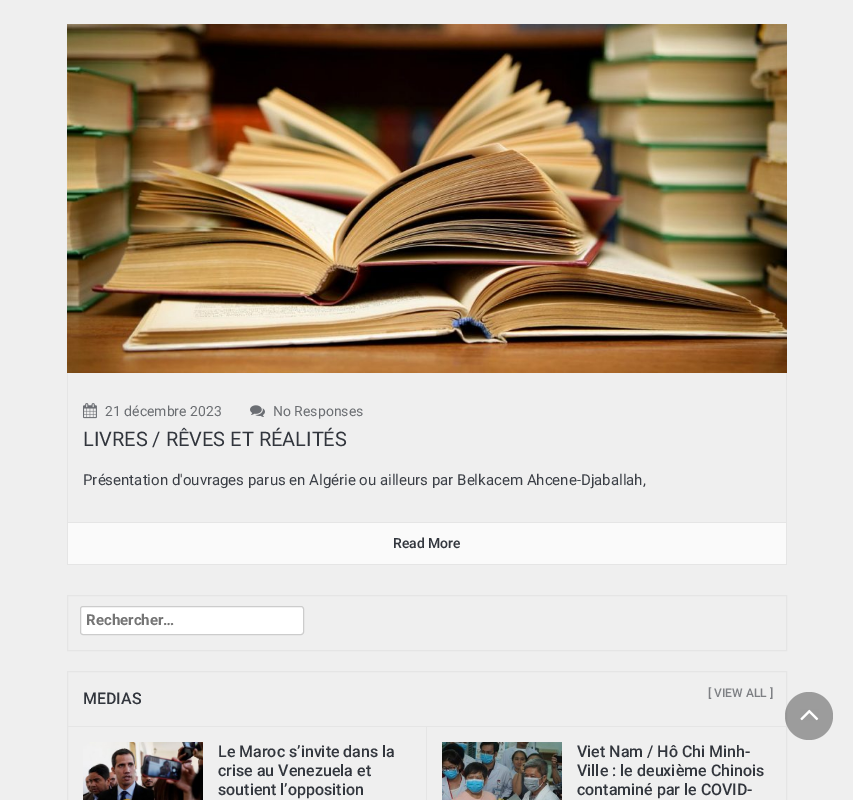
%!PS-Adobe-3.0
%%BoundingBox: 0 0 853 800
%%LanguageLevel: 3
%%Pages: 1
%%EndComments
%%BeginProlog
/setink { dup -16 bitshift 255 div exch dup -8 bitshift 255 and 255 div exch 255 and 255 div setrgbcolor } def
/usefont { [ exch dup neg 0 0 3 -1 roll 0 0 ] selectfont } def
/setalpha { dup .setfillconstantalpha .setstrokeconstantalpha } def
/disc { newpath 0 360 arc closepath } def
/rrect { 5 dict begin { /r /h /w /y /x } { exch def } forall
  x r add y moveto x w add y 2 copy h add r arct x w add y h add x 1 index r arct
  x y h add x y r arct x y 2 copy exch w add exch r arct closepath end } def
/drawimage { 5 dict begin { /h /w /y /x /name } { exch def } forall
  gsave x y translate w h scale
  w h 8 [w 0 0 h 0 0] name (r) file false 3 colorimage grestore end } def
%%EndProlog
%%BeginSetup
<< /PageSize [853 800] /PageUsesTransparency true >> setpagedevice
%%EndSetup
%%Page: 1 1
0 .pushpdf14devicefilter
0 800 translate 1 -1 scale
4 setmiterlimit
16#EFEFEF setink
0 0 853 800 rectfill
(img1.raw) 67 24 720 349 drawimage
[
    [786 373 1 192 16#E5E5E5]
    [67 522 720 1 16#E5E5E5]
    [67 373 1 150 16#E5E5E5]
] { aload pop setink rectfill } forall
(img2.raw) 83 403 14 16 drawimage
/Roboto-Regular 14 usefont
16#6B6E72 setink
105 416 moveto (21 décembre 2023) show
(img3.raw) 250 405 15 12 drawimage
273 416 moveto (No Responses) show
/Roboto-Regular 20 usefont
16#32363D setink
83 446 moveto (LIVRES / RÊVES ET RÉALITÉS) show
/Roboto-Regular 15 usefont
16#3B3F46 setink
83 485 moveto (Présentation d'ouvrages parus en Algérie ou ailleurs par Belkacem Ahcene-Djaballah,) show
[
    [68 523 718 41 16#FAFAFA]
    [67 564 720 1 16#E5E5E5]
    [67 523 1 42 16#E5E5E5]
] { aload pop setink rectfill } forall
/Roboto-Medium 14 usefont
16#32363D setink
393 548 moveto (Read More) show
16#E5E5E5 setink
67.5 595.5 719 55 rectstroke
16#FFFFFF setink
80.5 606.5 223 28 2.5 rrect gsave fill grestore
16#CCCCCC setink
stroke
/Roboto-Bold 15 usefont
16#757575 setink
86 625 moveto (Rechercher…) show
16#E5E5E5 setink
67.5 671.5 719 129 rectstroke
68 726 718 1 rectfill
/Roboto-Medium 16 usefont
16#32363D setink
83 704 moveto (MEDIAS) show
/Roboto-Medium 12 usefont
16#7E8084 setink
708 697 moveto ([ VIEW ALL ]) show
16#E5E5E5 setink
426 727 1 73 rectfill
(img4.raw) 83 742 120 58 drawimage
/Roboto-Medium 16 usefont
16#32363D setink
[
    [(Le Maroc s’invite dans la) 218 757]
    [(crise au Venezuela et) 218 776]
    [(soutient l’opposition) 218 795]
] { aload pop moveto show } forall
(img5.raw) 442 742 120 58 drawimage
[
    [(Viet Nam / Hô Chi Minh-) 577 757]
    [(Ville : le deuxième Chinois) 577 776]
    [(contaminé par le COVID-) 577 795]
] { aload pop moveto show } forall
0.35 setalpha
16#000000 setink
809 716 24 disc fill
1 setalpha
(img6.raw) 800 709 19 12 drawimage
.poppdf14devicefilter showpage
%%EOF
